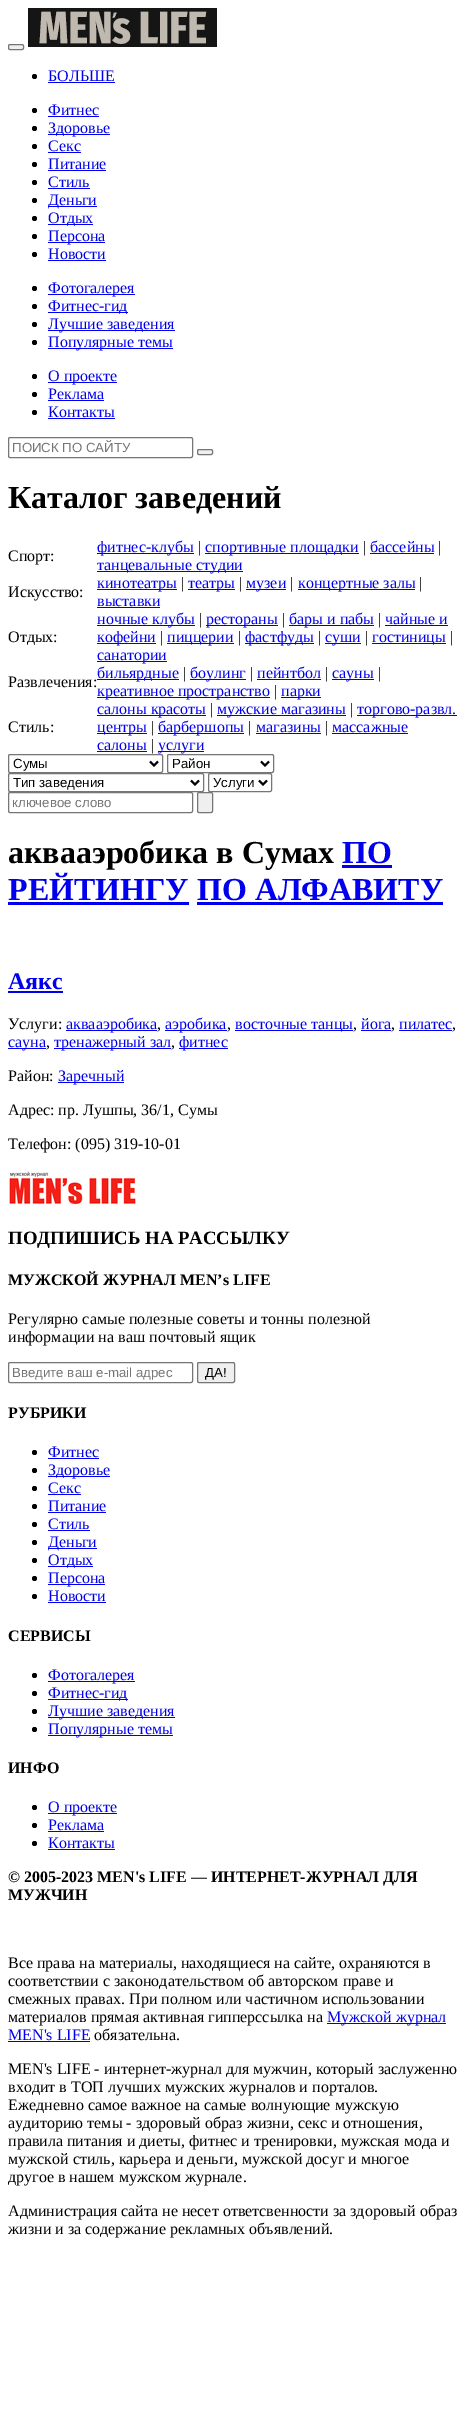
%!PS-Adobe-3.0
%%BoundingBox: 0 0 466 2416
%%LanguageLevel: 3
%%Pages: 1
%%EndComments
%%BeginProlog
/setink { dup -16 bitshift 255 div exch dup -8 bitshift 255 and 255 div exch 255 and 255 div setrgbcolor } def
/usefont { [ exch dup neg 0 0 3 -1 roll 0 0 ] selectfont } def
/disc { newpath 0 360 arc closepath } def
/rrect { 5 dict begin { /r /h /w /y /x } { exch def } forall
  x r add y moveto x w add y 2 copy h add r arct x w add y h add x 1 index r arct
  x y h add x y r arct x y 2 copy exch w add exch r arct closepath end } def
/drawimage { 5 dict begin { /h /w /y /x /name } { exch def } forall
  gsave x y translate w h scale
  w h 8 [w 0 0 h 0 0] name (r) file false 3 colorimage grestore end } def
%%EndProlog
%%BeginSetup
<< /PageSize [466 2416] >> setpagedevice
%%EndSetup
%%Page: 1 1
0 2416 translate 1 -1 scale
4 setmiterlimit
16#FFFFFF setink
0 0 466 2416 rectfill
16#EFEFEF setink
8.5 44.5 15 5 1.5 rrect gsave fill grestore
16#767676 setink
stroke
(img1.raw) 28 8 189 39 drawimage
16#000000 setink
34.5 76.5 2.5 disc fill
/LiberationSerif-Regular 16 usefont
16#0000EE setink
48 81 moveto (БОЛЬШЕ) show
48 82 67 1 rectfill
16#000000 setink
34.5 110.5 2.5 disc fill
16#0000EE setink
48 115 moveto (Фитнес) show
48 116 51 1 rectfill
16#000000 setink
34.5 128.5 2.5 disc fill
16#0000EE setink
48 134 62 1 rectfill
48 133 moveto (Здоровье) show
16#000000 setink
34.5 146.5 2.5 disc fill
16#0000EE setink
48 151 moveto (Секс) show
48 152 33 1 rectfill
16#000000 setink
34.5 164.5 2.5 disc fill
16#0000EE setink
48 169 moveto (Питание) show
48 170 58 1 rectfill
16#000000 setink
34.5 182.5 2.5 disc fill
16#0000EE setink
48 187 moveto (Стиль) show
48 188 42 1 rectfill
16#000000 setink
34.5 200.5 2.5 disc fill
16#0000EE setink
48 206 49 1 rectfill
48 205 moveto (Деньги) show
16#000000 setink
34.5 218.5 2.5 disc fill
16#0000EE setink
48 224 45 1 rectfill
48 223 moveto (Отдых) show
16#000000 setink
34.5 236.5 2.5 disc fill
16#0000EE setink
48 242 57 1 rectfill
48 241 moveto (Персона) show
16#000000 setink
34.5 254.5 2.5 disc fill
16#0000EE setink
48 259 moveto (Новости) show
48 260 58 1 rectfill
16#000000 setink
34.5 288.5 2.5 disc fill
16#0000EE setink
48 294 87 1 rectfill
48 293 moveto (Фотогалерея) show
16#000000 setink
34.5 306.5 2.5 disc fill
16#0000EE setink
48 312 80 1 rectfill
48 311 moveto (Фитнес-гид) show
16#000000 setink
34.5 324.5 2.5 disc fill
16#0000EE setink
48 330 127 1 rectfill
48 329 moveto (Лучшие заведения) show
16#000000 setink
34.5 342.5 2.5 disc fill
16#0000EE setink
48 348 125 1 rectfill
48 347 moveto (Популярные темы) show
16#000000 setink
34.5 376.5 2.5 disc fill
16#0000EE setink
48 382 69 1 rectfill
48 381 moveto (О проекте) show
16#000000 setink
34.5 394.5 2.5 disc fill
16#0000EE setink
48 399 moveto (Реклама) show
48 400 56 1 rectfill
16#000000 setink
34.5 412.5 2.5 disc fill
16#0000EE setink
48 417 moveto (Контакты) show
48 418 67 1 rectfill
16#767676 setink
8.5 437.5 184 20 1.5 rrect stroke
/LiberationSans-Regular 13.25 usefont
16#757575 setink
12 452 moveto (ПОИСК ПО САЙТУ) show
16#EFEFEF setink
197.5 449.5 15 5 1.5 rrect gsave fill grestore
16#767676 setink
stroke
/LiberationSerif-Bold 32 usefont
16#000000 setink
8 508 moveto (Каталог заведений) show
/LiberationSerif-Regular 16 usefont
8 561 moveto (Спорт:) show
16#0000EE setink
97 553 97 1 rectfill
97 552 moveto (фитнес-клубы) show
16#000000 setink
198 552 moveto (|) show
16#0000EE setink
205 553 154 1 rectfill
205 552 moveto (спортивные площадки) show
16#000000 setink
363 552 moveto (|) show
16#0000EE setink
370 552 moveto (бассейны) show
370 553 64 1 rectfill
16#000000 setink
438 552 moveto (|) show
16#0000EE setink
97 571 146 1 rectfill
97 570 moveto (танцевальные студии) show
16#000000 setink
8 597 moveto (Искусство:) show
16#0000EE setink
97 589 80 1 rectfill
97 588 moveto (кинотеатры) show
16#000000 setink
181 588 moveto (|) show
16#0000EE setink
188 589 47 1 rectfill
188 588 moveto (театры) show
16#000000 setink
239 588 moveto (|) show
16#0000EE setink
246 589 40 1 rectfill
246 588 moveto (музеи) show
16#000000 setink
290 588 moveto (|) show
16#0000EE setink
298 589 117 1 rectfill
298 588 moveto (концертные залы) show
16#000000 setink
419 588 moveto (|) show
16#0000EE setink
97 606 moveto (выставки) show
97 607 63 1 rectfill
16#000000 setink
8 642 moveto (Отдых:) show
16#0000EE setink
97 625 98 1 rectfill
97 624 moveto (ночные клубы) show
16#000000 setink
199 624 moveto (|) show
16#0000EE setink
206 625 72 1 rectfill
206 624 moveto (рестораны) show
16#000000 setink
282 624 moveto (|) show
16#0000EE setink
289 625 85 1 rectfill
289 624 moveto (бары и пабы) show
16#000000 setink
378 624 moveto (|) show
16#0000EE setink
385 624 moveto (чайные и) show
385 625 63 1 rectfill
97 643 59 1 rectfill
97 642 moveto (кофейни) show
16#000000 setink
160 642 moveto (|) show
16#0000EE setink
167 643 67 1 rectfill
167 642 moveto (пиццерии) show
16#000000 setink
238 642 moveto (|) show
16#0000EE setink
245 643 69 1 rectfill
245 642 moveto (фастфуды) show
16#000000 setink
318 642 moveto (|) show
16#0000EE setink
325 643 36 1 rectfill
325 642 moveto (суши) show
16#000000 setink
365 642 moveto (|) show
16#0000EE setink
372 643 74 1 rectfill
372 642 moveto (гостиницы) show
16#000000 setink
450 642 moveto (|) show
16#0000EE setink
97 661 70 1 rectfill
97 660 moveto (санатории) show
16#000000 setink
8 687 moveto (Развлечения:) show
16#0000EE setink
97 679 82 1 rectfill
97 678 moveto (бильярдные) show
16#000000 setink
183 678 moveto (|) show
16#0000EE setink
190 679 56 1 rectfill
190 678 moveto (боулинг) show
16#000000 setink
250 678 moveto (|) show
16#0000EE setink
257 678 moveto (пейнтбол) show
257 679 64 1 rectfill
16#000000 setink
325 678 moveto (|) show
16#0000EE setink
332 679 42 1 rectfill
332 678 moveto (сауны) show
16#000000 setink
378 678 moveto (|) show
16#0000EE setink
97 697 173 1 rectfill
97 696 moveto (креативное пространство) show
16#000000 setink
274 696 moveto (|) show
16#0000EE setink
281 697 40 1 rectfill
281 696 moveto (парки) show
16#000000 setink
8 732 moveto (Стиль:) show
16#0000EE setink
97 715 109 1 rectfill
97 714 moveto (салоны красоты) show
16#000000 setink
210 714 moveto (|) show
16#0000EE setink
217 715 129 1 rectfill
217 714 moveto (мужские магазины) show
16#000000 setink
350 714 moveto (|) show
16#0000EE setink
357 715 100 1 rectfill
357 714 moveto (торгово-развл.) show
97 733 50 1 rectfill
97 732 moveto (центры) show
16#000000 setink
151 732 moveto (|) show
16#0000EE setink
158 733 86 1 rectfill
158 732 moveto (барбершопы) show
16#000000 setink
248 732 moveto (|) show
16#0000EE setink
256 732 moveto (магазины) show
256 733 65 1 rectfill
16#000000 setink
325 732 moveto (|) show
16#0000EE setink
332 732 moveto (массажные) show
332 733 76 1 rectfill
97 750 moveto (салоны) show
97 751 50 1 rectfill
16#000000 setink
151 750 moveto (|) show
16#0000EE setink
158 751 46 1 rectfill
158 750 moveto (услуги) show
16#767676 setink
8.5 754.5 154 18 1.5 rrect stroke
16#000000 setink
2 setlinewidth
150 761.5 moveto 154 765.5 lineto 158 761.5 lineto stroke
/LiberationSans-Regular 13.25 usefont
13 768 moveto (Сумы) show
16#767676 setink
1 setlinewidth
167.5 754.5 106 18 1.5 rrect stroke
16#000000 setink
2 setlinewidth
261 761.5 moveto 265 765.5 lineto 269 761.5 lineto stroke
172 768 moveto (Район) show
16#767676 setink
1 setlinewidth
8.5 773.5 195 18 1.5 rrect stroke
16#000000 setink
2 setlinewidth
191 780.5 moveto 195 784.5 lineto 199 780.5 lineto stroke
13 787 moveto (Тип заведения) show
16#767676 setink
1 setlinewidth
208.5 773.5 63 18 1.5 rrect stroke
16#000000 setink
2 setlinewidth
259 780.5 moveto 263 784.5 lineto 267 780.5 lineto stroke
213 787 moveto (Услуги) show
16#767676 setink
1 setlinewidth
8.5 792.5 184 20 1.5 rrect stroke
16#757575 setink
12 807 moveto (ключевое слово) show
16#EFEFEF setink
197.5 792.5 15 20 1.5 rrect gsave fill grestore
16#767676 setink
stroke
/LiberationSerif-Bold 32 usefont
16#000000 setink
8 863 moveto (аквааэробика в Сумах) show
16#0000EE setink
342 863 moveto (ПО) show
342 865 50 3 rectfill
8 900 moveto (РЕЙТИНГУ ПО АЛФАВИТУ) show
8 902 181 3 rectfill
197 902 246 3 rectfill
/LiberationSerif-Bold 24 usefont
8 989 moveto (Аякс) show
8 991 55 2 rectfill
/LiberationSerif-Regular 16 usefont
16#000000 setink
8 1029 moveto (Услуги:) show
16#0000EE setink
66 1030 91 1 rectfill
66 1029 moveto (аквааэробика) show
16#000000 setink
157 1029 moveto (,) show
16#0000EE setink
165 1030 62 1 rectfill
165 1029 moveto (аэробика) show
16#000000 setink
227 1029 moveto (,) show
16#0000EE setink
235 1030 118 1 rectfill
235 1029 moveto (восточные танцы) show
16#000000 setink
353 1029 moveto (,) show
16#0000EE setink
361 1029 moveto (йога) show
361 1030 30 1 rectfill
16#000000 setink
391 1029 moveto (,) show
16#0000EE setink
399 1029 moveto (пилатес) show
399 1030 53 1 rectfill
16#000000 setink
452 1029 moveto (,) show
16#0000EE setink
8 1048 38 1 rectfill
8 1047 moveto (сауна) show
16#000000 setink
46 1047 moveto (,) show
16#0000EE setink
54 1048 117 1 rectfill
54 1047 moveto (тренажерный зал) show
16#000000 setink
171 1047 moveto (,) show
16#0000EE setink
179 1048 49 1 rectfill
179 1047 moveto (фитнес) show
16#000000 setink
8 1081 moveto (Район:) show
16#0000EE setink
58 1082 66 1 rectfill
58 1081 moveto (Заречный) show
16#000000 setink
8 1115 moveto (Адрес: пр. Лушпы, 36/1, Сумы) show
8 1149 moveto (Телефон: \(095\) 319-10-01) show
(img2.raw) 9 1171 127 34 drawimage
/LiberationSerif-Bold 18.75 usefont
8 1244 moveto (ПОДПИШИСЬ НА РАССЫЛКУ) show
/LiberationSerif-Bold 16 usefont
8 1285 moveto (МУЖСКОЙ ЖУРНАЛ MEN’s LIFE) show
/LiberationSerif-Regular 16 usefont
8 1324 moveto (Регулярно самые полезные советы и тонны полезной) show
8 1342 moveto (информации на ваш почтовый ящик) show
16#767676 setink
8.5 1362.5 184 20 1.5 rrect stroke
/LiberationSans-Regular 13.25 usefont
16#757575 setink
12 1377 moveto (Введите ваш e-mail адрес) show
16#EFEFEF setink
197.5 1362.5 37 20 1.5 rrect gsave fill grestore
16#767676 setink
stroke
16#000000 setink
205 1377 moveto (ДА!) show
/LiberationSerif-Bold 16 usefont
8 1418 moveto (РУБРИКИ) show
34.5 1452.5 2.5 disc fill
/LiberationSerif-Regular 16 usefont
16#0000EE setink
48 1457 moveto (Фитнес) show
48 1458 51 1 rectfill
16#000000 setink
34.5 1470.5 2.5 disc fill
16#0000EE setink
48 1476 62 1 rectfill
48 1475 moveto (Здоровье) show
16#000000 setink
34.5 1488.5 2.5 disc fill
16#0000EE setink
48 1493 moveto (Секс) show
48 1494 33 1 rectfill
16#000000 setink
34.5 1506.5 2.5 disc fill
16#0000EE setink
48 1511 moveto (Питание) show
48 1512 58 1 rectfill
16#000000 setink
34.5 1524.5 2.5 disc fill
16#0000EE setink
48 1529 moveto (Стиль) show
48 1530 42 1 rectfill
16#000000 setink
34.5 1542.5 2.5 disc fill
16#0000EE setink
48 1548 49 1 rectfill
48 1547 moveto (Деньги) show
16#000000 setink
34.5 1560.5 2.5 disc fill
16#0000EE setink
48 1566 45 1 rectfill
48 1565 moveto (Отдых) show
16#000000 setink
34.5 1578.5 2.5 disc fill
16#0000EE setink
48 1584 57 1 rectfill
48 1583 moveto (Персона) show
16#000000 setink
34.5 1596.5 2.5 disc fill
16#0000EE setink
48 1601 moveto (Новости) show
48 1602 58 1 rectfill
/LiberationSerif-Bold 16 usefont
16#000000 setink
8 1641 moveto (СЕРВИСЫ) show
34.5 1675.5 2.5 disc fill
16#0000EE setink
48 1681 87 1 rectfill
/LiberationSerif-Regular 16 usefont
48 1680 moveto (Фотогалерея) show
16#000000 setink
34.5 1693.5 2.5 disc fill
16#0000EE setink
48 1699 80 1 rectfill
48 1698 moveto (Фитнес-гид) show
16#000000 setink
34.5 1711.5 2.5 disc fill
16#0000EE setink
48 1717 127 1 rectfill
48 1716 moveto (Лучшие заведения) show
16#000000 setink
34.5 1729.5 2.5 disc fill
16#0000EE setink
48 1735 125 1 rectfill
48 1734 moveto (Популярные темы) show
/LiberationSerif-Bold 16 usefont
16#000000 setink
8 1773 moveto (ИНФО) show
34.5 1807.5 2.5 disc fill
16#0000EE setink
48 1813 69 1 rectfill
/LiberationSerif-Regular 16 usefont
48 1812 moveto (О проекте) show
16#000000 setink
34.5 1825.5 2.5 disc fill
16#0000EE setink
48 1830 moveto (Реклама) show
48 1831 56 1 rectfill
16#000000 setink
34.5 1843.5 2.5 disc fill
16#0000EE setink
48 1848 moveto (Контакты) show
48 1849 67 1 rectfill
/LiberationSerif-Bold 16 usefont
16#000000 setink
8 1882 moveto (© 2005-2023 MEN's LIFE — ИНТЕРНЕТ-ЖУРНАЛ ДЛЯ) show
8 1900 moveto (МУЖЧИН) show
/LiberationSerif-Regular 16 usefont
[
    [(Все права на материалы, находящиеся на сайте, охраняются в) 8 1968]
    [(соответствии с законодательством об авторском праве и) 8 1986]
    [(смежных правах. При полном или частичном использовании) 8 2004]
    [(материалов прямая активная гипперссылка на) 8 2022]
] { aload pop moveto show } forall
16#0000EE setink
327 2023 119 1 rectfill
327 2022 moveto (Мужской журнал) show
8 2040 moveto (MEN's LIFE) show
8 2041 82 1 rectfill
16#000000 setink
[
    [(обязательна.) 94 2040]
    [(MEN's LIFE - интернет-журнал для мужчин, который заслуженно) 8 2074]
    [(входит в ТОП лучших мужских журналов и порталов.) 8 2092]
    [(Ежедневно самое важное на самые волнующие мужскую) 8 2110]
    [(аудиторию темы - здоровый образ жизни, секс и отношения,) 8 2128]
    [(правила питания и диеты, фитнес и тренировки, мужская мода и) 8 2146]
    [(мужской стиль, карьера и деньги, мужской досуг и многое) 8 2164]
    [(другое в нашем мужском журнале.) 8 2182]
    [(Администрация сайта не несет ответсвенности за здоровый образ) 8 2216]
    [(жизни и за содержание рекламных объявлений.) 8 2234]
] { aload pop moveto show } forall
showpage
%%EOF
